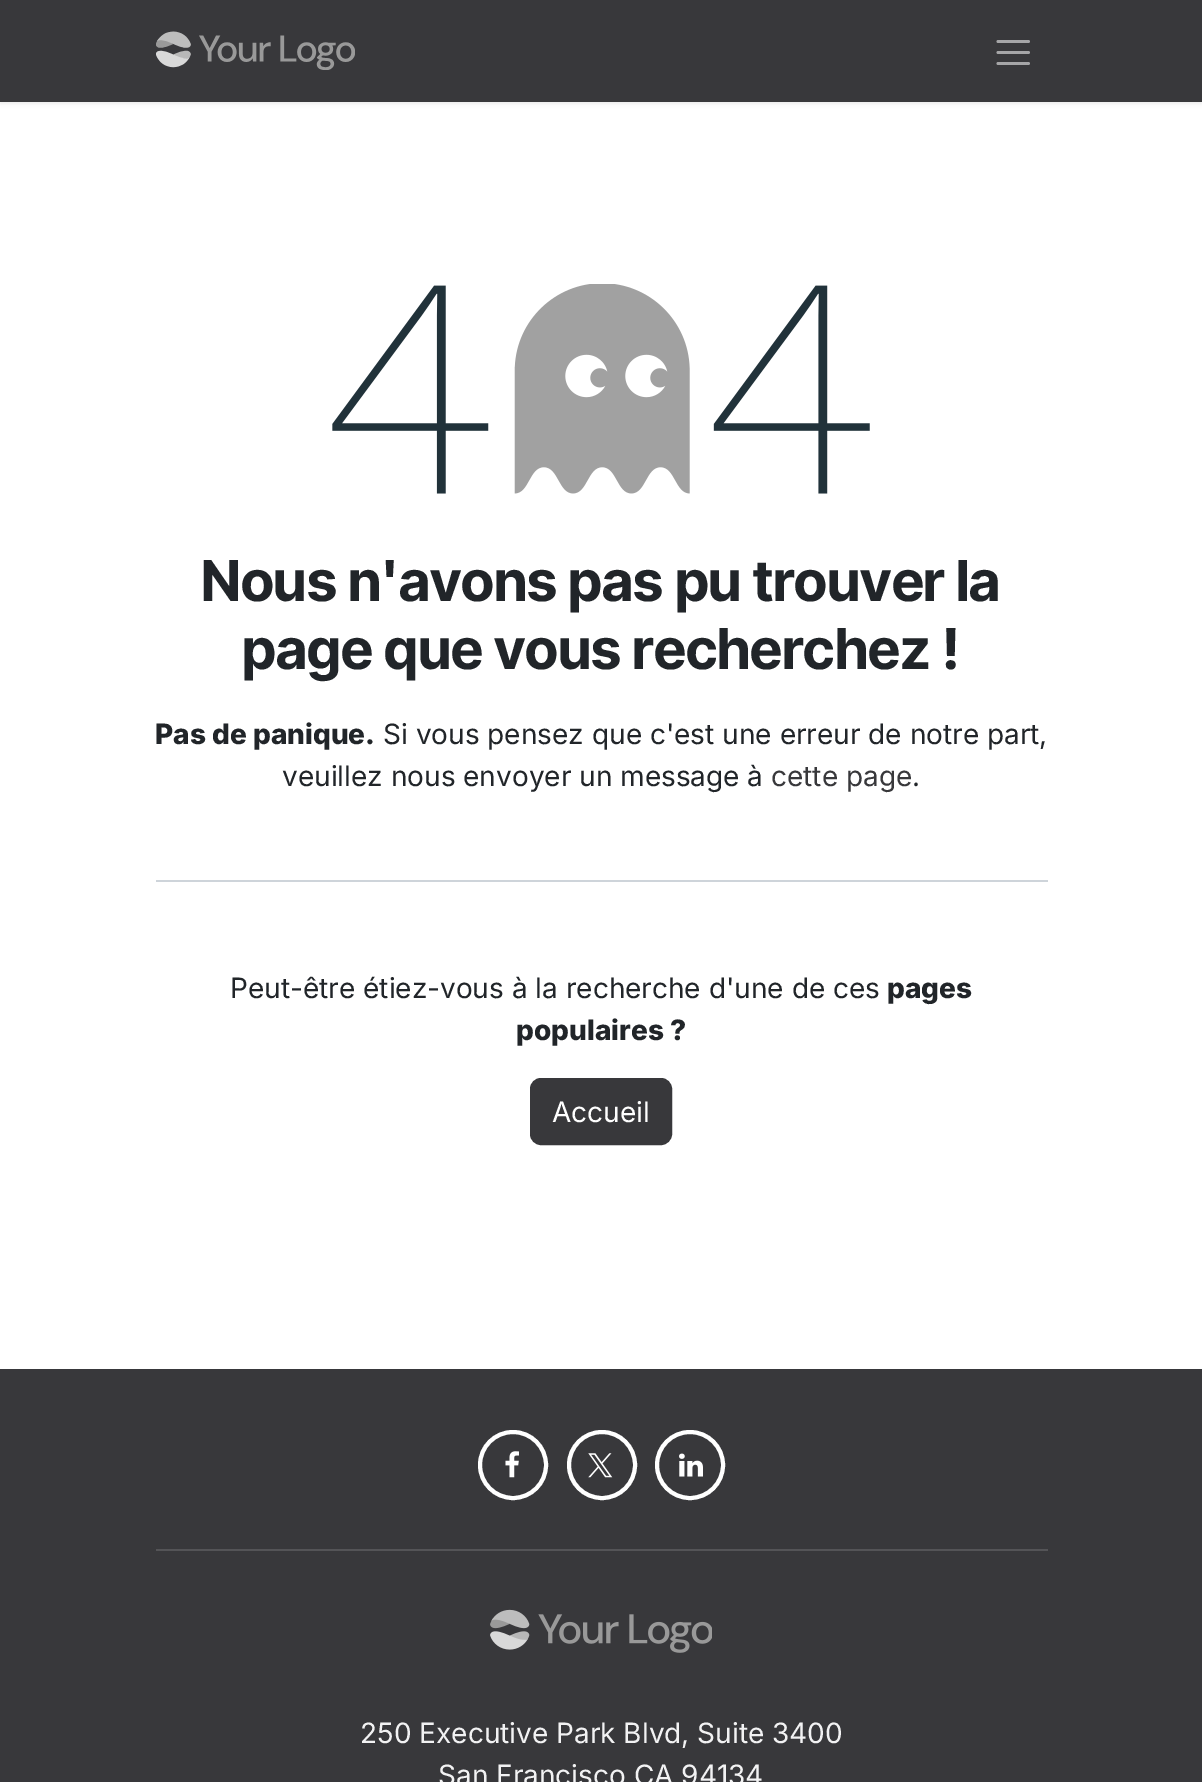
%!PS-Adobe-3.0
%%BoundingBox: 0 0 1202 1782
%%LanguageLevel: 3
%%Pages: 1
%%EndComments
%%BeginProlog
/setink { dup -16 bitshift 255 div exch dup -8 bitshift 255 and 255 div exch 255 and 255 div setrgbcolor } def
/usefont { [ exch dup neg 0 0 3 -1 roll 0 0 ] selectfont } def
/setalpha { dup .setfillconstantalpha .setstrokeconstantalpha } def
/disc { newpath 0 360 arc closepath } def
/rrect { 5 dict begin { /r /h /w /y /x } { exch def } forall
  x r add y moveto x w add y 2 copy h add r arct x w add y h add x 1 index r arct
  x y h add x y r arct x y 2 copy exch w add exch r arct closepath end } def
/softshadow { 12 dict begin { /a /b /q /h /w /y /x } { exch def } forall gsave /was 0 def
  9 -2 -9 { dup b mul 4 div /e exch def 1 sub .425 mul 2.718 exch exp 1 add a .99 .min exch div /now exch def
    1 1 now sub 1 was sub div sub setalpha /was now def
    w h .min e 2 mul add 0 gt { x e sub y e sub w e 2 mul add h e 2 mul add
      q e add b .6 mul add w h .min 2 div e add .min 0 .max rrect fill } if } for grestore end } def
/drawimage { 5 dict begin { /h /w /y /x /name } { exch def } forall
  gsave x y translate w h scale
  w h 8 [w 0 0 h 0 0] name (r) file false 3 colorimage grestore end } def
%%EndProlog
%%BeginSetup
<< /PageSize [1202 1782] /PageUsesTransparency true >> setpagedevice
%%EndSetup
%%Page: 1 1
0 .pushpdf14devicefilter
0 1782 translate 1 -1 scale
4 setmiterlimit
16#FFFFFF setink
0 0 1202 1782 rectfill
16#000000 setink
0 2 1202 101 0 2.5 0.1 softshadow
16#38383B setink
0 0 1202 102 rectfill
(img1.raw) 156 31 199 39 drawimage
16#A5A5A7 setink
2.8 setlinewidth
1 setlinecap
998 41.5 moveto 1028.5 41.5 lineto 998 52.5 moveto 1028.5 52.5 lineto 998 63.5 moveto 1028.5 63.5 lineto stroke
(img2.raw) 332 284 538 210 drawimage
/InterTight-Bold 56.5 usefont
16#212529 setink
201 601 moveto (Nous n'avons pas pu trouver la) show
242 669 moveto (page que vous recherchez !) show
/Inter-ExtraBold 28 usefont
155 744 moveto (Pas de panique.) show
/Inter-Regular 28 usefont
383 744 moveto (Si vous pensez que c'est une erreur de notre part,) show
282 786 moveto (veuillez nous envoyer un message à) show
16#38383B setink
771 786 moveto (cette page) show
16#212529 setink
912 786 moveto (.) show
16#CED4DA setink
156 880 892 2 rectfill
16#212529 setink
230 998 moveto (Peut-être étiez-vous à la recherche d'une de ces) show
/Inter-ExtraBold 28 usefont
887 998 moveto (pages) show
516 1040 moveto (populaires ?) show
16#38383B setink
531 1079 140 65 10 rrect gsave fill grestore
2 setlinewidth
0 setlinecap
stroke
/Inter-Regular 28 usefont
16#FFFFFF setink
552 1122 moveto (Accueil) show
16#38383B setink
0 1369 1202 413 rectfill
16#FFFFFF setink
4 setlinewidth
513 1465 33 disc stroke
(img3.raw) 505 1451 14 27 drawimage
602 1465 33 disc stroke
(img4.raw) 588 1453 25 25 drawimage
690 1465 33 disc stroke
(img5.raw) 679 1453 24 24 drawimage
16#545457 setink
156 1549 892 2 rectfill
(img6.raw) 490 1609 222 44 drawimage
16#F2F2F3 setink
360 1743 moveto (250 Executive Park Blvd, Suite 3400) show
438 1785 moveto (San Francisco CA 94134) show
.poppdf14devicefilter showpage
%%EOF
